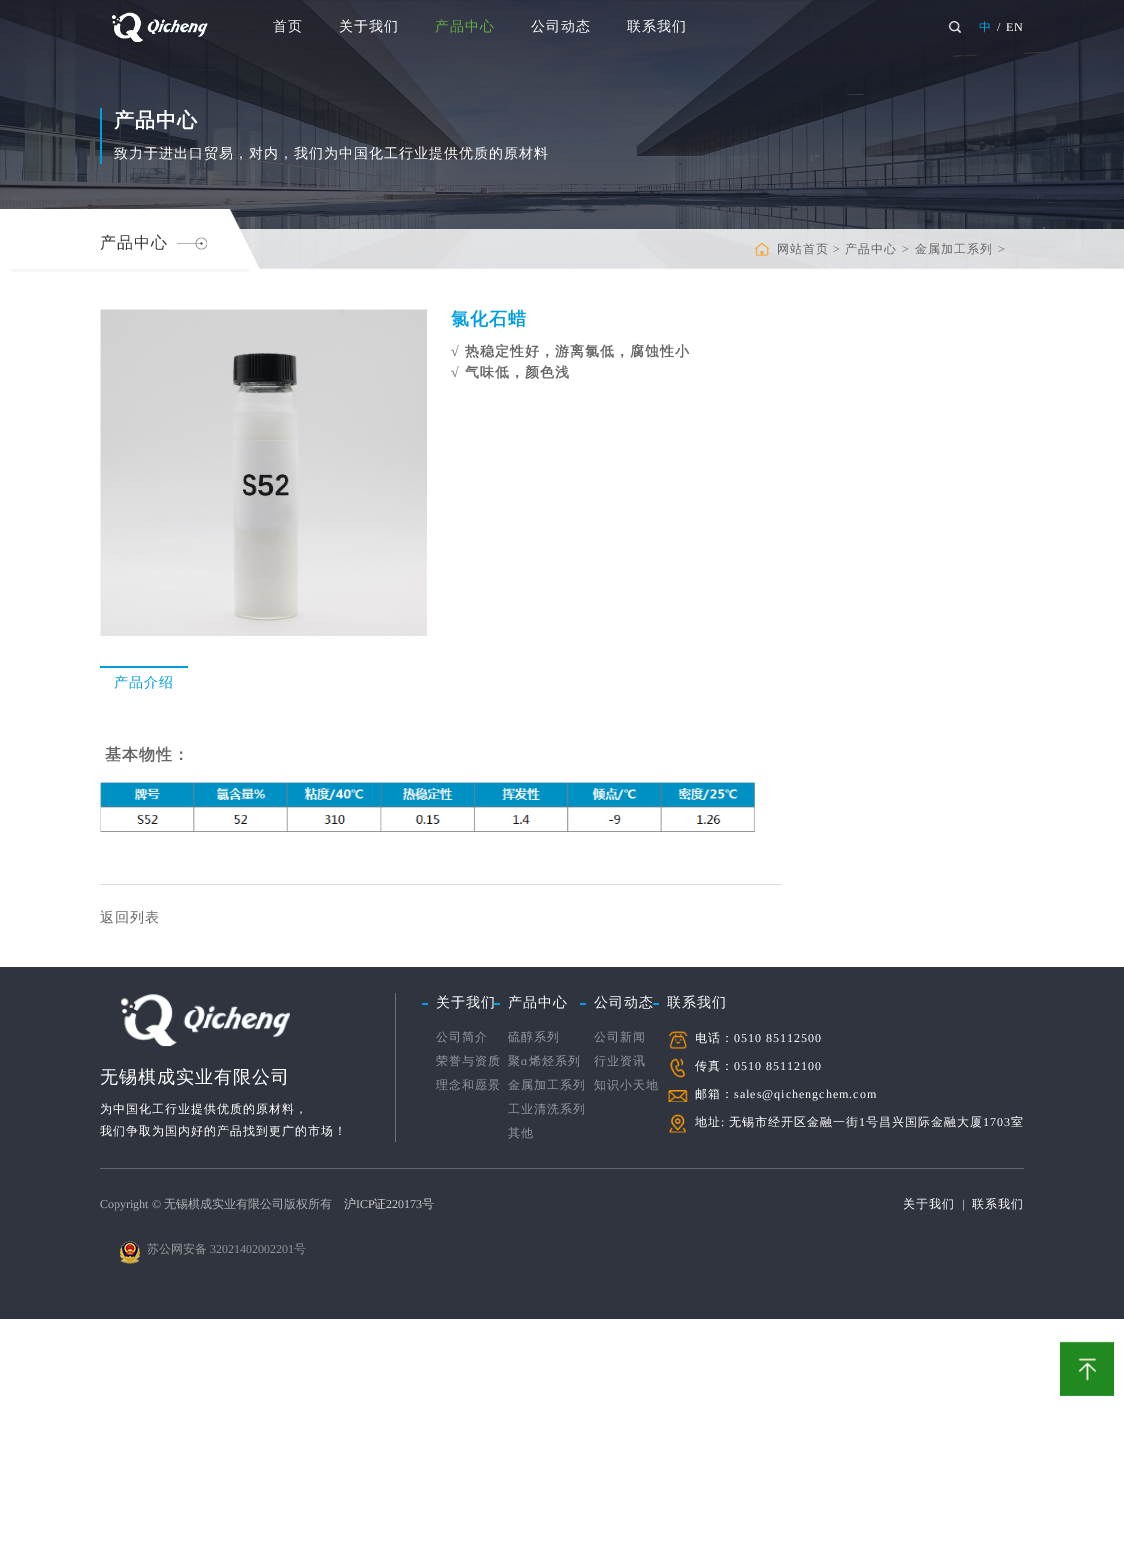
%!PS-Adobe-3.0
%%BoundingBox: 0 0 1124 1551
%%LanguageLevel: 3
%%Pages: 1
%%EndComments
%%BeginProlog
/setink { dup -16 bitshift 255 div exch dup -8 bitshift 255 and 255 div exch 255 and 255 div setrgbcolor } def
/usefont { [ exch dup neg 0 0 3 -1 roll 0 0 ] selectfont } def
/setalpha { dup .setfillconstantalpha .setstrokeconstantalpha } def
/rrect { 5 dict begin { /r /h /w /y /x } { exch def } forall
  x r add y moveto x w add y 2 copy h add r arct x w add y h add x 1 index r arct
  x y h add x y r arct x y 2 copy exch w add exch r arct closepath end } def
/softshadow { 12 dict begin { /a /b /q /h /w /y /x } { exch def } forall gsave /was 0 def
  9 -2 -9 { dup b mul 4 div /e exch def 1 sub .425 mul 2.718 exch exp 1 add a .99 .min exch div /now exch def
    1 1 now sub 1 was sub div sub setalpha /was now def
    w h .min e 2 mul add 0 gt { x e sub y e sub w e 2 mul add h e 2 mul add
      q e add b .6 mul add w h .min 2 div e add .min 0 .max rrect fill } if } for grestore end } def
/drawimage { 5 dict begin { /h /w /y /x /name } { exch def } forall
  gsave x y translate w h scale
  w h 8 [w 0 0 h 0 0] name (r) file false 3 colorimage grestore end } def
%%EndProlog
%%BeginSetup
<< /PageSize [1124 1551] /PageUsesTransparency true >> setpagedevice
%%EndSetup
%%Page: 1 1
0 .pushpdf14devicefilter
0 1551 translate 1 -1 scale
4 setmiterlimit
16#FFFFFF setink
0 0 1124 1551 rectfill
(img3.raw) 0 0 1124 269 drawimage
(img4.raw) 0 0 1124 269 drawimage
(img1.raw) 112 12 96 30 drawimage
/WenQuanYiZenHei-Medium 14 usefont
273 31 moveto 1 0 (首页) ashow
339 31 moveto 1 0 (关于我们) ashow
16#62B13C setink
435 31 moveto 1 0 (产品中心) ashow
16#FFFFFF setink
531 31 moveto 1 0 (公司动态) ashow
627 31 moveto 1 0 (联系我们) ashow
(img2.raw) 948 21 13 12 drawimage
/WenQuanYiZenHei-Medium 12 usefont
16#009EE0 setink
979 31 moveto 1 0 (中) ashow
/LiberationSerif-Regular 12 usefont
16#FFFFFF setink
997 31 moveto 1 0 (/) ashow
1006 31 moveto 1 0 (EN) ashow
16#009EE0 setink
100 108 2 56 rectfill
/WenQuanYiZenHei-Bold 20 usefont
16#FFFFFF setink
114 127 moveto 1 0 (产品中心) ashow
/WenQuanYiZenHei-Medium 14 usefont
114 158 moveto 1 0 (致力于进出口贸易，对内，我们为中国化工行业提供优质的原材料) ashow
0.84 setalpha
239 229 885 40 rectfill
gsave
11 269 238 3 rectclip
1 setalpha
16#000000 setink
12 233 236 36 0 4 0.1 softshadow
grestore
1 setalpha
(img5.raw) 0 209 260 60 drawimage
/WenQuanYiZenHei-Medium 16 usefont
16#333333 setink
100 248 moveto 1 0 (产品中心) ashow
(img6.raw) 177 237 30 13 drawimage
(img7.raw) 754 243 16 13 drawimage
/WenQuanYiZenHei-Medium 12 usefont
16#666666 setink
777 253 moveto 1 0 (网站首页) ashow
/LiberationSerif-Regular 12 usefont
833 253 moveto 1 0 (>) ashow
/WenQuanYiZenHei-Medium 12 usefont
845 253 moveto 1 0 (产品中心) ashow
/LiberationSerif-Regular 12 usefont
902 253 moveto 1 0 (>) ashow
/WenQuanYiZenHei-Medium 12 usefont
915 253 moveto 1 0 (金属加工系列) ashow
/LiberationSerif-Regular 12 usefont
998 253 moveto 1 0 (>) ashow
(img8.raw) 100 309 327 327 drawimage
/WenQuanYiZenHei-Bold 18 usefont
16#009EE0 setink
451 325 moveto 1 0 (氯化石蜡) ashow
/LiberationSerif-Bold 14 usefont
16#666666 setink
451 356 moveto 1 0 (√) ashow
/WenQuanYiZenHei-Bold 14 usefont
465 356 moveto 1 0 (热稳定性好，游离氯低，腐蚀性小) ashow
/LiberationSerif-Bold 14 usefont
451 377 moveto 1 0 (√) ashow
/WenQuanYiZenHei-Bold 14 usefont
465 377 moveto 1 0 (气味低，颜色浅) ashow
16#009EE0 setink
100 666 88 2 rectfill
/WenQuanYiZenHei-Medium 14 usefont
114 687 moveto 1 0 (产品介绍) ashow
16#DDDDDD setink
100 884 682 1 rectfill
/WenQuanYiZenHei-Bold 16 usefont
16#666666 setink
105 760 moveto 1 0 (基本物性：) ashow
(img9.raw) 100 782 655 50 drawimage
/WenQuanYiZenHei-Medium 14 usefont
100 922 moveto 1 0 (返回列表) ashow
16#30343F setink
0 967 1124 352 rectfill
16#61646C setink
100 1168 924 1 rectfill
(img10.raw) 121 994 169 53 drawimage
/WenQuanYiZenHei-Medium 18 usefont
16#FFFFFF setink
100 1083 moveto 1 0 (无锡棋成实业有限公司) ashow
/WenQuanYiZenHei-Medium 12 usefont
100 1113 moveto 1 0 (为中国化工行业提供优质的原材料，) ashow
100 1135 moveto 1 0 (我们争取为国内好的产品找到更广的市场！) ashow
16#6F7179 setink
395 993 1 149 rectfill
16#009EE0 setink
422 1003 6 2 rectfill
/WenQuanYiZenHei-Medium 14 usefont
16#FFFFFF setink
436 1007 moveto 1 0 (关于我们) ashow
/WenQuanYiZenHei-Medium 12 usefont
16#95979D setink
436 1041 moveto 1 0 (公司简介) ashow
436 1065 moveto 1 0 (荣誉与资质) ashow
436 1089 moveto 1 0 (理念和愿景) ashow
16#009EE0 setink
494 1003 6 2 rectfill
/WenQuanYiZenHei-Medium 14 usefont
16#FFFFFF setink
508 1007 moveto 1 0 (产品中心) ashow
/WenQuanYiZenHei-Medium 12 usefont
16#95979D setink
508 1041 moveto 1 0 (硫醇系列) ashow
508 1065 moveto 1 0 (聚) ashow
/LiberationSerif-Regular 12 usefont
521 1065 moveto 1 0 (ɑ) ashow
/WenQuanYiZenHei-Medium 12 usefont
529 1065 moveto 1 0 (烯烃系列) ashow
508 1089 moveto 1 0 (金属加工系列) ashow
508 1113 moveto 1 0 (工业清洗系列) ashow
508 1137 moveto 1 0 (其他) ashow
16#009EE0 setink
580 1003 6 2 rectfill
/WenQuanYiZenHei-Medium 14 usefont
16#FFFFFF setink
594 1007 moveto 1 0 (公司动态) ashow
/WenQuanYiZenHei-Medium 12 usefont
16#95979D setink
594 1041 moveto 1 0 (公司新闻) ashow
594 1065 moveto 1 0 (行业资讯) ashow
594 1089 moveto 1 0 (知识小天地) ashow
16#009EE0 setink
653 1003 6 2 rectfill
/WenQuanYiZenHei-Medium 14 usefont
16#FFFFFF setink
667 1007 moveto 1 0 (联系我们) ashow
(img11.raw) 668 1031 20 18 drawimage
/WenQuanYiZenHei-Medium 12 usefont
695 1042 moveto 1 0 (电话：) ashow
/LiberationSerif-Regular 12 usefont
734 1042 moveto 1 0 (0510 85112500) ashow
(img12.raw) 670 1058 15 20 drawimage
/WenQuanYiZenHei-Medium 12 usefont
695 1070 moveto 1 0 (传真：) ashow
/LiberationSerif-Regular 12 usefont
734 1070 moveto 1 0 (0510 85112100) ashow
(img13.raw) 668 1090 20 12 drawimage
/WenQuanYiZenHei-Medium 12 usefont
695 1098 moveto 1 0 (邮箱：) ashow
/LiberationSerif-Regular 12 usefont
734 1098 moveto 1 0 (sales@qichengchem.com) ashow
(img14.raw) 669 1114 17 19 drawimage
/WenQuanYiZenHei-Medium 12 usefont
695 1126 moveto 1 0 (地址) ashow
/LiberationSerif-Regular 12 usefont
721 1126 moveto 1 0 (:) ashow
/WenQuanYiZenHei-Medium 12 usefont
729 1126 moveto 1 0 (无锡市经开区金融一街) ashow
/LiberationSerif-Regular 12 usefont
859 1126 moveto 1 0 (1) ashow
/WenQuanYiZenHei-Medium 12 usefont
866 1126 moveto 1 0 (号昌兴国际金融大厦) ashow
/LiberationSerif-Regular 12 usefont
983 1126 moveto 1 0 (1703) ashow
/WenQuanYiZenHei-Medium 12 usefont
1011 1126 moveto 1 0 (室) ashow
/LiberationSerif-Regular 12 usefont
16#ACAEB2 setink
100 1208 moveto (Copyright ©) show
/WenQuanYiZenHei-Medium 12 usefont
164 1208 moveto (无锡棋成实业有限公司版权所有) show
16#C9C9C9 setink
344 1208 moveto (沪) show
/LiberationSerif-Regular 12 usefont
356 1208 moveto (ICP) show
/WenQuanYiZenHei-Medium 12 usefont
374 1208 moveto (证) show
/LiberationSerif-Regular 12 usefont
386 1208 moveto (220173) show
/WenQuanYiZenHei-Medium 12 usefont
422 1208 moveto (号) show
(img15.raw) 120 1241 20 23 drawimage
16#939393 setink
147 1253 moveto (苏公网安备) show
/LiberationSerif-Regular 12 usefont
210 1253 moveto (32021402002201) show
/WenQuanYiZenHei-Medium 12 usefont
294 1253 moveto (号) show
16#FFFFFF setink
903 1208 moveto 1 0 (关于我们) ashow
/LiberationSerif-Regular 12 usefont
962 1208 moveto 1 0 (|) ashow
/WenQuanYiZenHei-Medium 12 usefont
972 1208 moveto 1 0 (联系我们) ashow
(img16.raw) 1060 1341 54 55 drawimage
.poppdf14devicefilter showpage
%%EOF
